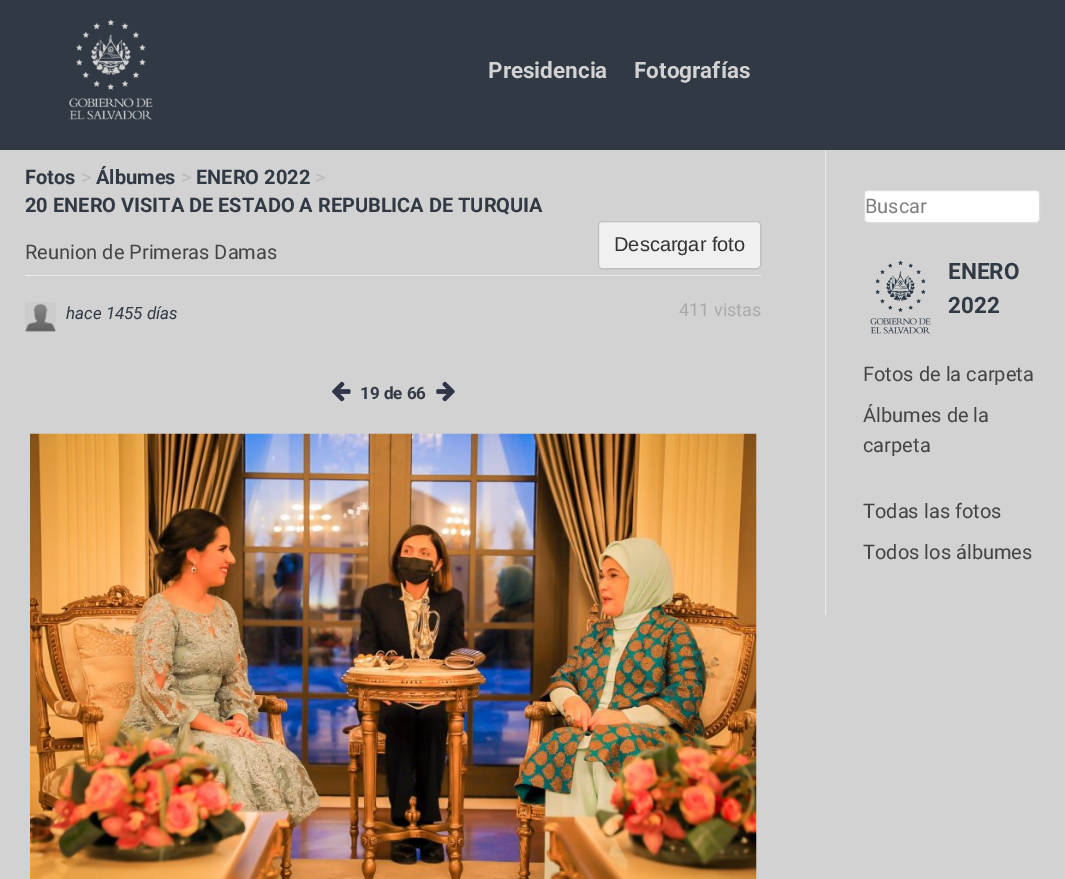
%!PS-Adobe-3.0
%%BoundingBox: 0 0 1065 879
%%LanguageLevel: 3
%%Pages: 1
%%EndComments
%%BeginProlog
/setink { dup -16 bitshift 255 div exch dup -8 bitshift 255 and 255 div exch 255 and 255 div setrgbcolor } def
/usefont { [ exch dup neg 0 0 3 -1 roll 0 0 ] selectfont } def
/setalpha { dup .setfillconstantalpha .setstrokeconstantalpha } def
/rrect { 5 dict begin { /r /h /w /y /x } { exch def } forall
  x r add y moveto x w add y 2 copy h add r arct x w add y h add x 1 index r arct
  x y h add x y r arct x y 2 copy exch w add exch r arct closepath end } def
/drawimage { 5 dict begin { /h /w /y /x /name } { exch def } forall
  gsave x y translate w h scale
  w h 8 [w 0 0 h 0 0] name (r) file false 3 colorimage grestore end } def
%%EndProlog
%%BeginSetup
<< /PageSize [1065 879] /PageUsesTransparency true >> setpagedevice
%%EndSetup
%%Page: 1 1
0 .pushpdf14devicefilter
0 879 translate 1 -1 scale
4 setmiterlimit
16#D2D2D2 setink
0 0 1065 879 rectfill
16#313945 setink
0 0 1065 150 rectfill
(img1.raw) 69 19 84 101 drawimage
/Roboto-Bold 22.5 usefont
16#D2D2D2 setink
488 78 moveto (Presidencia) show
634 78 moveto (Fotografías) show
/Roboto-Bold 20 usefont
16#313945 setink
25 184 moveto (Fotos) show
/Roboto-Regular 20 usefont
16#BABABA setink
81 184 moveto (>) show
/Roboto-Bold 20 usefont
16#313945 setink
96 184 moveto (Álbumes) show
/Roboto-Regular 20 usefont
16#BABABA setink
181 184 moveto (>) show
/Roboto-Bold 20 usefont
16#313945 setink
196 184 moveto (ENERO 2022) show
/Roboto-Regular 20 usefont
16#BABABA setink
315 184 moveto (>) show
/Roboto-Bold 20 usefont
16#313945 setink
25 212 moveto (20 ENERO VISITA DE ESTADO A REPUBLICA DE TURQUIA) show
16#EBEBEB setink
25 275 736 1 rectfill
/Roboto-Regular 20 usefont
16#444444 setink
25 259 moveto (Reunion de Primeras Damas) show
16#F0F0F0 setink
598 221 163 48 4 rrect fill
0.2 setalpha
16#000000 setink
598.5 221.5 162 47 3.5 rrect stroke
/LiberationSans-Regular 20 usefont
1 setalpha
16#333333 setink
614 251 moveto (Descargar foto) show
(img2.raw) 25 302 31 30 drawimage
/Roboto-Italic 17 usefont
16#313945 setink
66 319 moveto (hace 1455 días) show
/Roboto-Regular 18 usefont
16#AAAAAA setink
679 316 moveto (411 vistas) show
(img3.raw) 332 381 19 21 drawimage
/Roboto-Bold 17 usefont
16#313945 setink
360 399 moveto (19 de 66) show
(img4.raw) 436 381 19 21 drawimage
(img5.raw) 30 433 727 446 drawimage
16#EBEBEB setink
825 150 1 465 rectfill
16#FFFFFF setink
864.5 190.5 175 32 3.5 rrect gsave fill grestore
16#DCDCDC setink
stroke
/Roboto-Regular 20 usefont
16#808080 setink
865 213 moveto (Buscar) show
(img6.raw) 870 260 61 74 drawimage
/Roboto-Bold 22.5 usefont
16#313945 setink
948 279 moveto (ENERO) show
948 313 moveto (2022) show
/Roboto-Regular 20 usefont
16#444444 setink
[
    [(Fotos de la carpeta) 863 381]
    [(Álbumes de la) 863 422]
    [(carpeta) 863 452]
    [(Todas las fotos) 863 518]
    [(Todos los álbumes) 863 559]
] { aload pop moveto show } forall
.poppdf14devicefilter showpage
%%EOF
